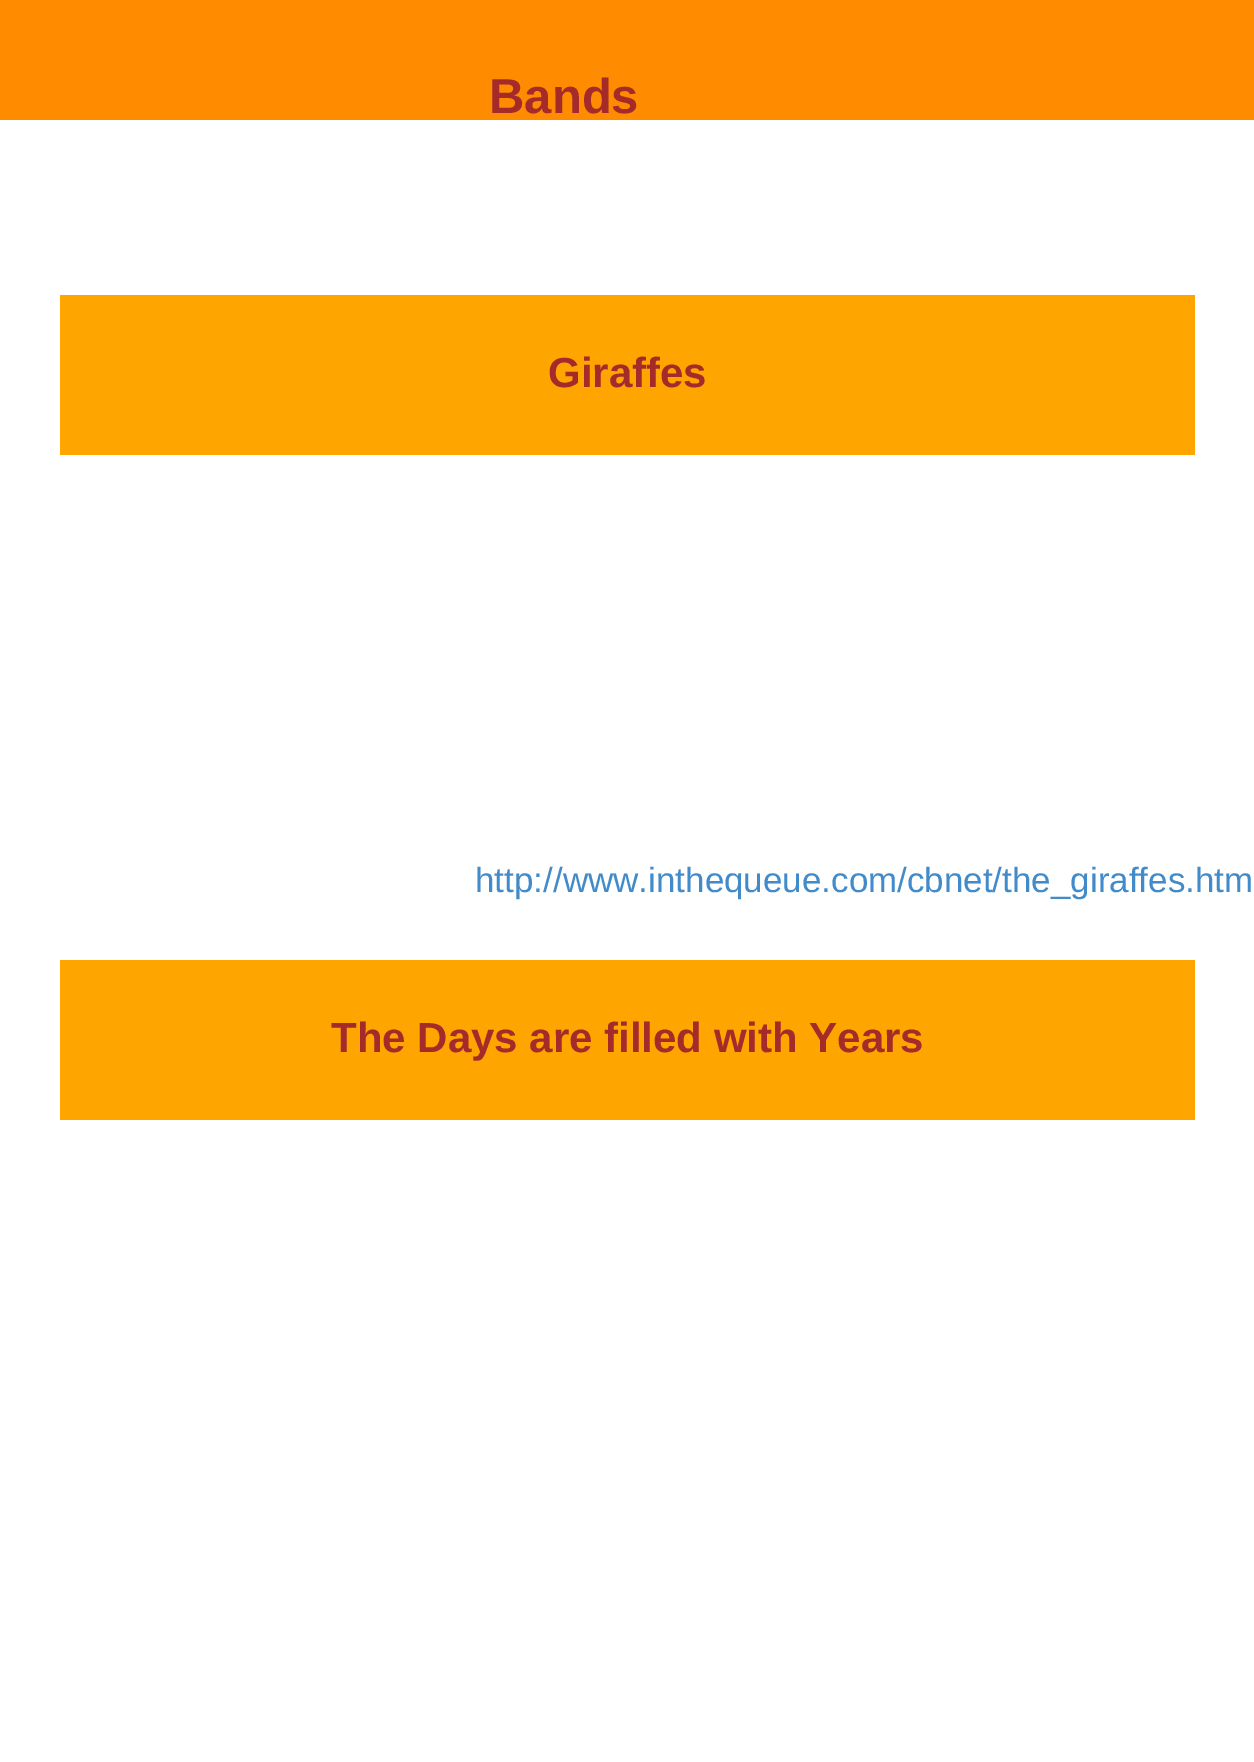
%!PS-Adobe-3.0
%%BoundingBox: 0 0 1254 1762
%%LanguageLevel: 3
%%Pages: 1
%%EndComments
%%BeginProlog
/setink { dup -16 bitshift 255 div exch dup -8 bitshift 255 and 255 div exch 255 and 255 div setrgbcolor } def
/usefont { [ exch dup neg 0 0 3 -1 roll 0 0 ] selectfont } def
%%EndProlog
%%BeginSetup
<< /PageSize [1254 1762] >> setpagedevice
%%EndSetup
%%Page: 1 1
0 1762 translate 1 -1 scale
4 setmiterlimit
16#FFFFFF setink
0 0 1254 1762 rectfill
16#FF8C00 setink
0 0 1254 120 rectfill
/LiberationSans-Bold 49 usefont
16#A52A2A setink
489 113 moveto (Bands) show
16#FFA500 setink
60 295 1135 160 rectfill
/LiberationSans-Bold 42 usefont
16#A52A2A setink
548 387 moveto (Giraffes) show
/LiberationSans-Regular 35 usefont
16#428BCA setink
475 892 moveto (http://www.inthequeue.com/cbnet/the_giraffes.htm) show
16#FFA500 setink
60 960 1135 160 rectfill
/LiberationSans-Bold 42 usefont
16#A52A2A setink
331 1052 moveto (The Days are filled with Years) show
showpage
%%EOF
